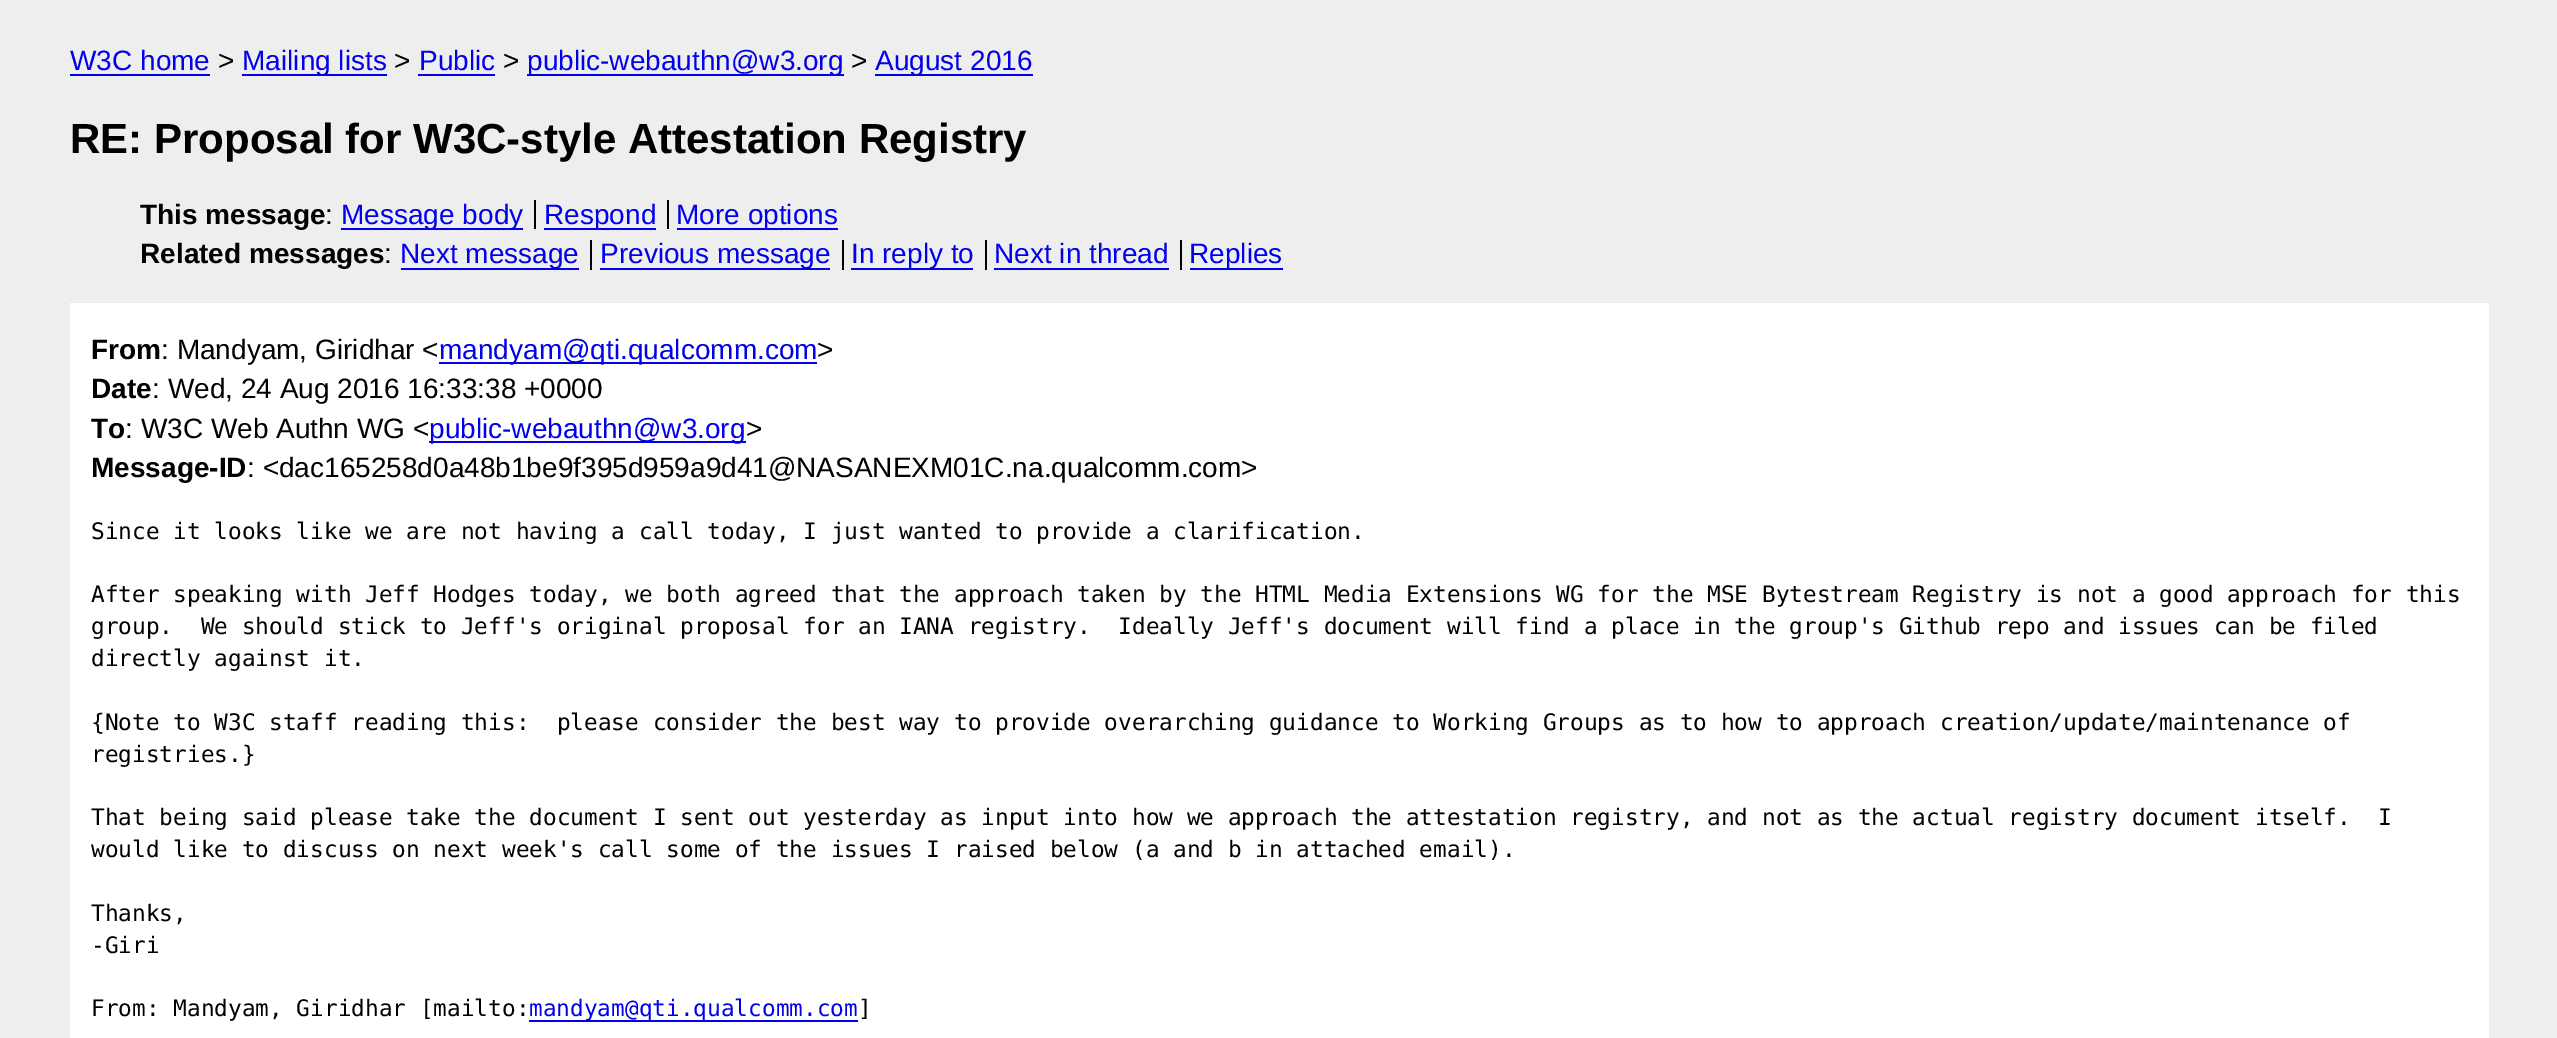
%!PS-Adobe-3.0
%%BoundingBox: 0 0 2557 1038
%%LanguageLevel: 3
%%Pages: 1
%%EndComments
%%BeginProlog
/setink { dup -16 bitshift 255 div exch dup -8 bitshift 255 and 255 div exch 255 and 255 div setrgbcolor } def
/usefont { [ exch dup neg 0 0 3 -1 roll 0 0 ] selectfont } def
%%EndProlog
%%BeginSetup
<< /PageSize [2557 1038] >> setpagedevice
%%EndSetup
%%Page: 1 1
0 1038 translate 1 -1 scale
4 setmiterlimit
16#EEEEEE setink
0 0 2557 1038 rectfill
/LiberationSans-Regular 28 usefont
16#0000EE setink
70 70 moveto (W3C home) show
70 74 140 2 rectfill
16#000000 setink
218 70 moveto (>) show
16#0000EE setink
242 74 145 2 rectfill
242 70 moveto (Mailing lists) show
16#000000 setink
394 70 moveto (>) show
16#0000EE setink
419 70 moveto (Public) show
418 74 77 2 rectfill
16#000000 setink
503 70 moveto (>) show
16#0000EE setink
527 74 317 2 rectfill
527 70 moveto (public-webauthn@w3.org) show
16#000000 setink
851 70 moveto (>) show
16#0000EE setink
875 74 158 2 rectfill
875 70 moveto (August 2016) show
/LiberationSans-Bold 42 usefont
16#000000 setink
70 153 moveto (RE: Proposal for W3C-style Attestation Registry) show
/LiberationSans-Bold 28 usefont
140 224 moveto (This message) show
/LiberationSans-Regular 28 usefont
325 224 moveto (:) show
16#0000EE setink
341 228 182 2 rectfill
341 224 moveto (Message body) show
544 228 112 2 rectfill
544 224 moveto (Respond) show
16#000000 setink
534 200 2 29 rectfill
16#0000EE setink
677 228 161 2 rectfill
676 224 moveto (More options) show
16#000000 setink
667 200 2 29 rectfill
/LiberationSans-Bold 28 usefont
140 263 moveto (Related messages) show
/LiberationSans-Regular 28 usefont
384 263 moveto (:) show
16#0000EE setink
401 268 178 2 rectfill
400 263 moveto (Next message) show
600 268 230 2 rectfill
600 263 moveto (Previous message) show
16#000000 setink
590 240 2 30 rectfill
16#0000EE setink
851 268 122 2 rectfill
851 263 moveto (In reply to) show
16#000000 setink
842 240 2 30 rectfill
985 240 2 30 rectfill
16#0000EE setink
994 263 moveto (Next in thread) show
994 268 175 2 rectfill
1190 268 93 2 rectfill
1189 263 moveto (Replies) show
16#000000 setink
1180 240 2 30 rectfill
16#FFFFFF setink
70 303 2419 735 rectfill
/LiberationSans-Bold 28 usefont
16#000000 setink
91 359 moveto (From) show
/LiberationSans-Regular 28 usefont
161 359 moveto (: Mandyam, Giridhar <) show
16#0000EE setink
439 362 378 2 rectfill
439 359 moveto (mandyam@qti.qualcomm.com) show
16#000000 setink
817 359 moveto (>) show
/LiberationSans-Bold 28 usefont
91 398 moveto (Date) show
/LiberationSans-Regular 28 usefont
152 398 moveto (: Wed, 24 Aug 2016 16:33:38 +0000) show
/LiberationSans-Bold 28 usefont
91 438 moveto (To) show
/LiberationSans-Regular 28 usefont
125 438 moveto (: W3C Web Authn WG <) show
16#0000EE setink
429 441 317 2 rectfill
429 438 moveto (public-webauthn@w3.org) show
16#000000 setink
746 438 moveto (>) show
/LiberationSans-Bold 28 usefont
91 477 moveto (Message-ID) show
/LiberationSans-Regular 28 usefont
247 477 moveto (: <dac165258d0a48b1be9f395d959a9d41@NASANEXM01C.na.qualcomm.com>) show
/DejaVuSansMono-Regular 22.75 usefont
[
    [(Since it looks like we are not having a call today, I just wanted to provide a clarification.) 91 539]
    [(After speaking with Jeff Hodges today, we both agreed that the approach taken by the HTML Media Extensions WG for the MSE Bytestream Registry is not a good approach for this) 91 602]
    [(group.  We should stick to Jeff's original proposal for an IANA registry.  Ideally Jeff's document will find a place in the group's Github repo and issues can be filed) 91 634]
    [(directly against it.) 91 666]
    [({Note to W3C staff reading this:  please consider the best way to provide overarching guidance to Working Groups as to how to approach creation/update/maintenance of) 91 730]
    [(registries.}) 91 762]
    [(That being said please take the document I sent out yesterday as input into how we approach the attestation registry, and not as the actual registry document itself.  I) 91 825]
    [(would like to discuss on next week's call some of the issues I raised below \(a and b in attached email\).) 91 857]
    [(Thanks,) 91 921]
    [(-Giri) 91 953]
    [(From: Mandyam, Giridhar [mailto:) 91 1016]
] { aload pop moveto show } forall
16#0000EE setink
529 1020 329 2 rectfill
529 1016 moveto (mandyam@qti.qualcomm.com) show
16#000000 setink
858 1016 moveto (]) show
showpage
%%EOF
